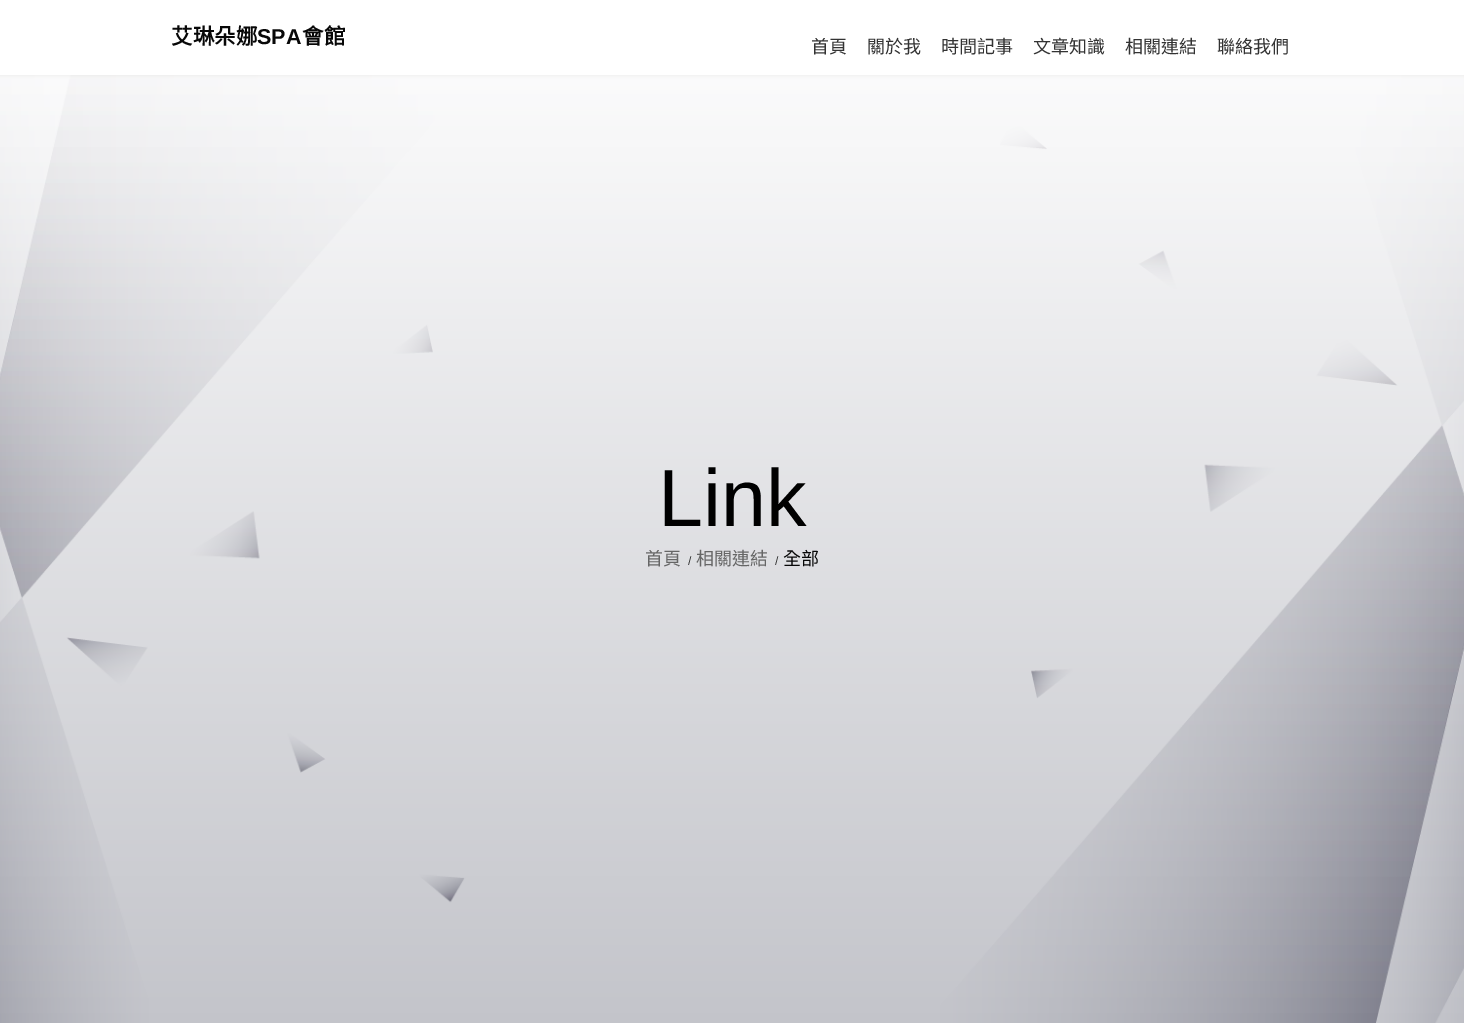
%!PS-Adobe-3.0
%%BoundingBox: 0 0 1464 1023
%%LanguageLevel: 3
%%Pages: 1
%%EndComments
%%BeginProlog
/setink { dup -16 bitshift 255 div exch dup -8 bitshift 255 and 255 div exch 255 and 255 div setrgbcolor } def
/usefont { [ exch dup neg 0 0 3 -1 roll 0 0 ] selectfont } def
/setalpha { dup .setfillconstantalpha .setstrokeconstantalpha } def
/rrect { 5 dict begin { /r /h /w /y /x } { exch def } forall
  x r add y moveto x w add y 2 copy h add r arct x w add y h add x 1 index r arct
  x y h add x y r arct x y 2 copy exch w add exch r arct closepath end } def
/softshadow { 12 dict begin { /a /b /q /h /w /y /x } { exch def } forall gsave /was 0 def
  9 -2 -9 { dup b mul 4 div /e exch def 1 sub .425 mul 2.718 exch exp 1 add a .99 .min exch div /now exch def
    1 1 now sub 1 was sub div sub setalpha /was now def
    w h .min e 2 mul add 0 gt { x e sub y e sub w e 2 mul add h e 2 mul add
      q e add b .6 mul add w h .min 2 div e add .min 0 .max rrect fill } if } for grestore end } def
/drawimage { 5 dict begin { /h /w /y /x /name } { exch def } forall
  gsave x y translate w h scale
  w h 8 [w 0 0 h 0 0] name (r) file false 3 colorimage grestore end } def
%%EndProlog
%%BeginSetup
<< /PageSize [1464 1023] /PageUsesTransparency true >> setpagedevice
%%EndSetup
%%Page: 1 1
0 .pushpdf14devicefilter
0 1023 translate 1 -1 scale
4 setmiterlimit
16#FFFFFF setink
0 0 1464 1023 rectfill
(img1.raw) 0 75 1464 948 drawimage
16#000000 setink
0 -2 1464 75 0 2.5 0.2 softshadow
16#FFFFFF setink
0 0 1464 75 rectfill
/NotoSansCJKTC-Bold 21.5 usefont
16#080808 setink
171 44 moveto (艾琳朵娜) show
/LiberationSans-Bold 21.5 usefont
257 44 moveto (SPA) show
/NotoSansCJKTC-Bold 21.5 usefont
302 44 moveto (會館) show
/NotoSansCJKTC-Regular 18 usefont
16#333333 setink
[
    [(首頁) 811 53]
    [(關於我) 867 53]
    [(時間記事) 941 53]
    [(文章知識) 1033 53]
    [(相關連結) 1125 53]
    [(聯絡我們) 1217 53]
] { aload pop moveto show } forall
/LiberationSans-Regular 81 usefont
16#000000 setink
658 526 moveto (Link) show
/NotoSansCJKTC-Regular 18 usefont
16#666666 setink
645 565 moveto (首頁) show
/LiberationSans-Regular 12 usefont
16#333333 setink
688 565 moveto (/) show
/NotoSansCJKTC-Regular 18 usefont
16#666666 setink
696 565 moveto (相關連結) show
/LiberationSans-Regular 12 usefont
16#333333 setink
775 565 moveto (/) show
/NotoSansCJKTC-Regular 18 usefont
16#080808 setink
783 565 moveto (全部) show
.poppdf14devicefilter showpage
%%EOF
